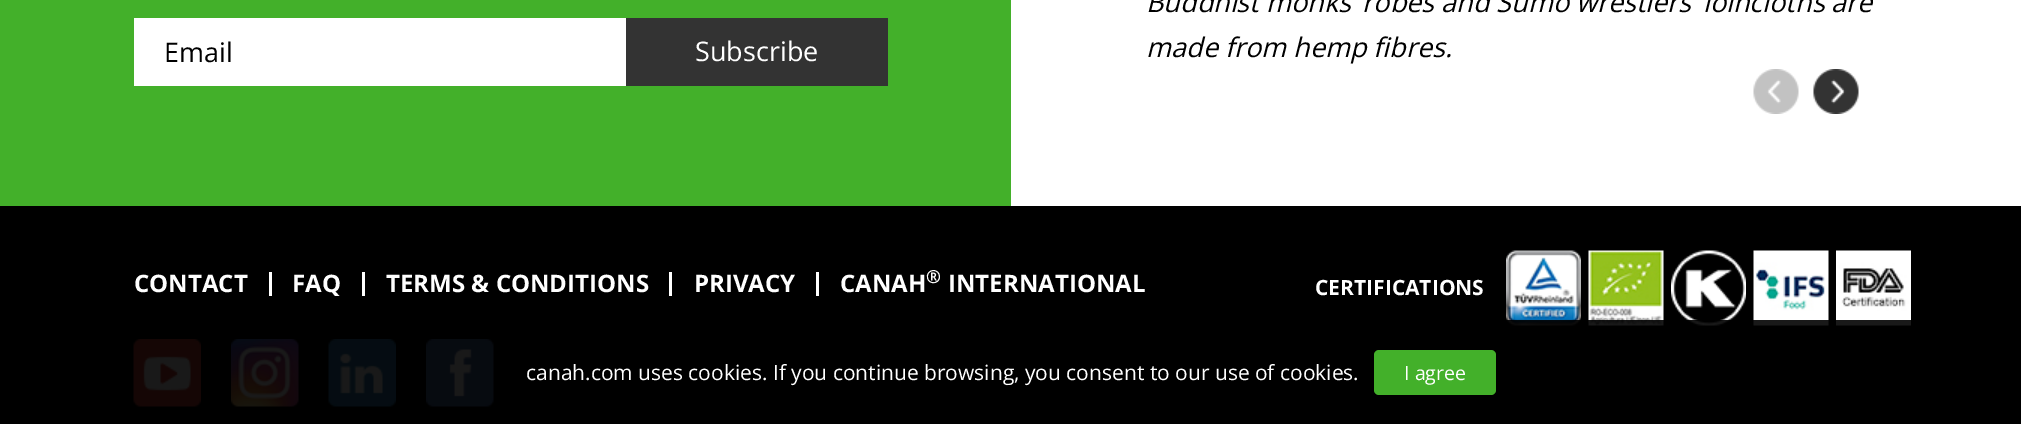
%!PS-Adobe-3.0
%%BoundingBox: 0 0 2021 424
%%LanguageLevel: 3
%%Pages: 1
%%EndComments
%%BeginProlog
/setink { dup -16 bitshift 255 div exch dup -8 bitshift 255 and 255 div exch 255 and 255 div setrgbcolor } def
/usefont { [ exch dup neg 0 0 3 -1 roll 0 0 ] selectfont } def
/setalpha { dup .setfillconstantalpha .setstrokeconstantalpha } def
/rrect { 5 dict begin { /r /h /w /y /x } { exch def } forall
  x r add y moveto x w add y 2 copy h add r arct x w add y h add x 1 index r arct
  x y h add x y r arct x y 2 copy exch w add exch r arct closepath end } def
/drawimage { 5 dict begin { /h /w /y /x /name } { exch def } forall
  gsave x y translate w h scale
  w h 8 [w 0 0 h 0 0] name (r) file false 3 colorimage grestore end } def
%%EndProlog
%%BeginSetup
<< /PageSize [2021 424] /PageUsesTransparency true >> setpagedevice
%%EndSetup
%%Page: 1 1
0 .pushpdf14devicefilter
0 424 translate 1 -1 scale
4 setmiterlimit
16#FFFFFF setink
0 0 2021 424 rectfill
16#43B02A setink
0 0 1011 206 rectfill
16#FFFFFF setink
134 18 492 68 rectfill
/OpenSans-Regular 27 usefont
16#000000 setink
164 62 moveto (Email) show
16#333333 setink
626 18 262 68 rectfill
16#FFFFFF setink
695 61 moveto (Subscribe) show
/OpenSans-Italic 27 usefont
16#000000 setink
1146 12 moveto (Buddhist monks’ robes and Sumo wrestlers’ loincloths are) show
1146 57 moveto (made from hemp fibres.) show
(img1.raw) 1753 69 46 45 drawimage
(img2.raw) 1813 69 46 45 drawimage
0 206 2021 218 rectfill
/OpenSans-Bold 24 usefont
16#FFFFFF setink
134 292 moveto (CONTACT) show
269 272 3 24 rectfill
292 292 moveto (FAQ) show
362 272 3 24 rectfill
386 292 moveto (TERMS & CONDITIONS) show
669 272 3 24 rectfill
694 292 moveto (PRIVACY) show
816 272 3 24 rectfill
840 292 moveto (CANAH) show
/OpenSans-Bold 18 usefont
926 283 moveto (®) show
/OpenSans-Bold 24 usefont
948 292 moveto (INTERNATIONAL) show
(img3.raw) 133 339 68 68 drawimage
(img4.raw) 231 339 68 68 drawimage
(img5.raw) 328 339 68 68 drawimage
(img6.raw) 426 339 68 68 drawimage
/OpenSans-Bold 21 usefont
1315 295 moveto (CERTIFICATIONS) show
(img7.raw) 1506 250 75 76 drawimage
(img8.raw) 1588 250 76 76 drawimage
(img9.raw) 1671 250 75 76 drawimage
(img10.raw) 1753 250 76 76 drawimage
(img11.raw) 1836 250 75 76 drawimage
0.9 setalpha
16#000000 setink
133 320 1778 87 rectfill
/OpenSans-Regular 21 usefont
1 setalpha
16#FFFFFF setink
526 380 moveto (canah.com uses cookies. If you continue browsing, you consent to our use of cookies.) show
16#43B02A setink
1374 350 122 45 5 rrect fill
/OpenSans-Regular 19.5 usefont
16#FFFFFF setink
1404 380 moveto (I agree) show
.poppdf14devicefilter showpage
%%EOF
